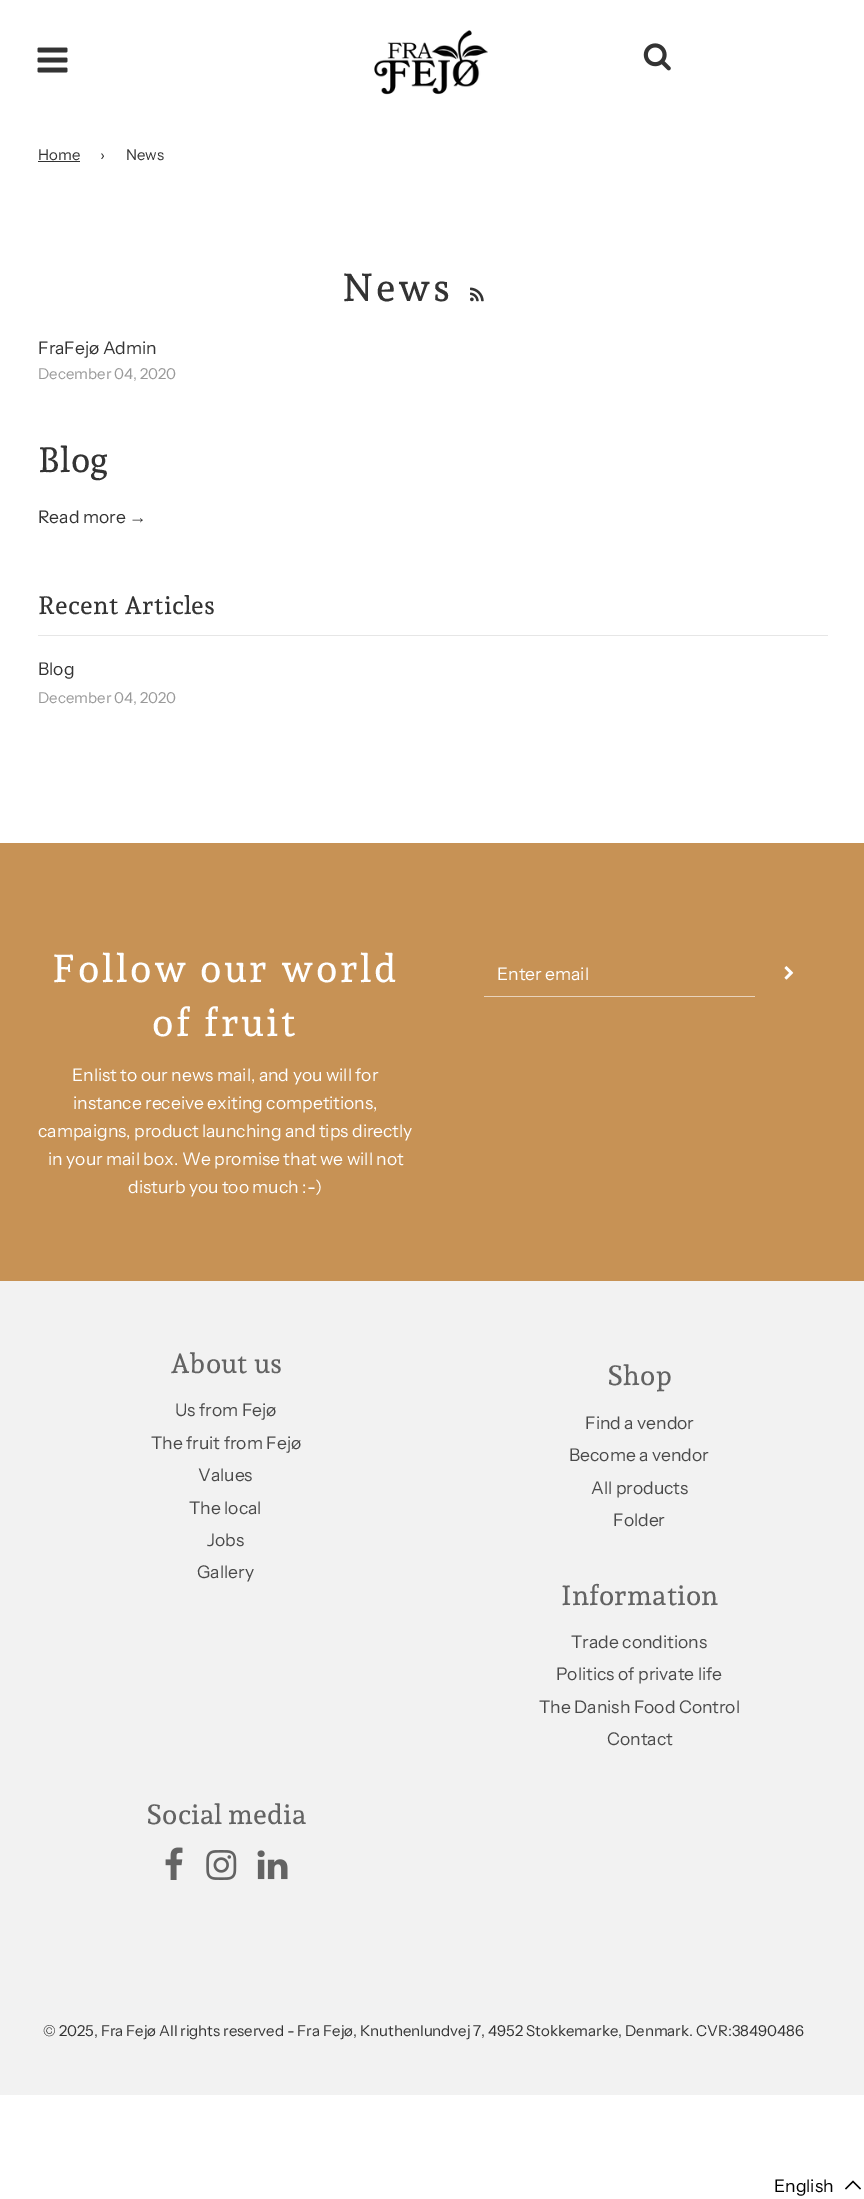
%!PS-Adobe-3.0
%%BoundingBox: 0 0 864 2199
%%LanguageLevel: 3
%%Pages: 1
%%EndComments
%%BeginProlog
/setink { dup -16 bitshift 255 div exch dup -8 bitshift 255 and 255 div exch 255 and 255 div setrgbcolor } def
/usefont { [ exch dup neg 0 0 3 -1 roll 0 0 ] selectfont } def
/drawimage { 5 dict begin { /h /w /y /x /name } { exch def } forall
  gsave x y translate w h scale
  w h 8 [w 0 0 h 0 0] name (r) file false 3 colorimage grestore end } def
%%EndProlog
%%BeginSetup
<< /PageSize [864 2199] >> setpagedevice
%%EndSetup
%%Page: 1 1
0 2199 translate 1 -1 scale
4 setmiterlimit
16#FFFFFF setink
0 0 864 2199 rectfill
(img1.raw) 37 47 31 26 drawimage
(img2.raw) 374 30 114 65 drawimage
(img3.raw) 643 43 28 28 drawimage
/InstrumentSans-Regular 15 usefont
16#333333 setink
38 160 moveto (Home) show
38 161 42 1 rectfill
100 160 moveto (›) show
126 160 moveto (News) show
/AndadaPro-Medium 38.75 usefont
342 301 moveto 2.5 0 (News) ashow
(img4.raw) 470 287 14 15 drawimage
/InstrumentSans-Regular 17.5 usefont
38 354 moveto (FraFejø Admin) show
/InstrumentSans-Regular 15 usefont
16#999999 setink
38 379 moveto (December 04, 2020) show
/AndadaPro-Medium 35 usefont
16#333333 setink
38 472 moveto (Blog) show
/InstrumentSans-Regular 17.5 usefont
38 523 moveto (Read more) show
/LiberationSans-Regular 17.5 usefont
129 523 moveto (→) show
/AndadaPro-Medium 25 usefont
38 614 moveto (Recent Articles) show
16#E6E6E6 setink
38 635 790 1 rectfill
/InstrumentSans-Regular 17.5 usefont
16#333333 setink
38 675 moveto (Blog) show
/InstrumentSans-Regular 15 usefont
16#999999 setink
38 703 moveto (December 04, 2020) show
16#C79255 setink
0 843 864 438 rectfill
/AndadaPro-Medium 38.75 usefont
16#FFFFFF setink
52 982 moveto 2.5 0 (Follow our world) ashow
152 1036 moveto 2.5 0 (of fruit) ashow
/InstrumentSans-Regular 17.5 usefont
[
    [(Enlist to our news mail, and you will for) 72 1081]
    [(instance receive exiting competitions,) 73 1109]
    [(campaigns, product launching and tips directly) 38 1137]
    [(in your mail box. We promise that we will not) 48 1165]
    [(disturb you too much :-\)) 128 1193]
] { aload pop moveto show } forall
16#E9D3BB setink
484 996 271 1 rectfill
16#FFFFFF setink
497 980 moveto (Enter email) show
(img5.raw) 784 966 10 14 drawimage
16#F2F2F2 setink
0 1281 864 814 rectfill
/AndadaPro-Medium 27.5 usefont
16#636363 setink
170 1373 moveto (About us) show
/InstrumentSans-Regular 17.5 usefont
16#4A4A4A setink
[
    [(Us from Fejø) 175 1416]
    [(The fruit from Fejø) 151 1449]
    [(Values) 198 1481]
    [(The local) 189 1514]
    [(Jobs) 207 1546]
    [(Gallery) 197 1578]
] { aload pop moveto show } forall
/AndadaPro-Medium 27.5 usefont
16#636363 setink
607 1385 moveto (Shop) show
/InstrumentSans-Regular 17.5 usefont
16#4A4A4A setink
[
    [(Find a vendor) 585 1429]
    [(Become a vendor) 569 1461]
    [(All products) 591 1494]
    [(Folder) 613 1526]
] { aload pop moveto show } forall
/AndadaPro-Medium 27.5 usefont
16#636363 setink
561 1605 moveto (Information) show
/InstrumentSans-Regular 17.5 usefont
16#4A4A4A setink
[
    [(Trade conditions) 571 1648]
    [(Politics of private life) 556 1680]
    [(The Danish Food Control) 539 1713]
    [(Contact) 607 1745]
] { aload pop moveto show } forall
/AndadaPro-Medium 27.5 usefont
16#636363 setink
146 1824 moveto (Social media) show
(img6.raw) 165 1847 18 33 drawimage
(img7.raw) 206 1850 31 30 drawimage
(img8.raw) 257 1850 31 30 drawimage
/InstrumentSans-Regular 15 usefont
16#333333 setink
43 2036 moveto (© 2025, Fra Fejø All rights reserved - Fra Fejø, Knuthenlundvej 7, 4952 Stokkemarke, Denmark. CVR:38490486) show
/InstrumentSans-Regular 17.5 usefont
16#000000 setink
774 2192 moveto (English) show
1.2 setlinewidth
860.5 2189 moveto 853 2181.5 lineto 845.5 2189 lineto stroke
showpage
%%EOF
